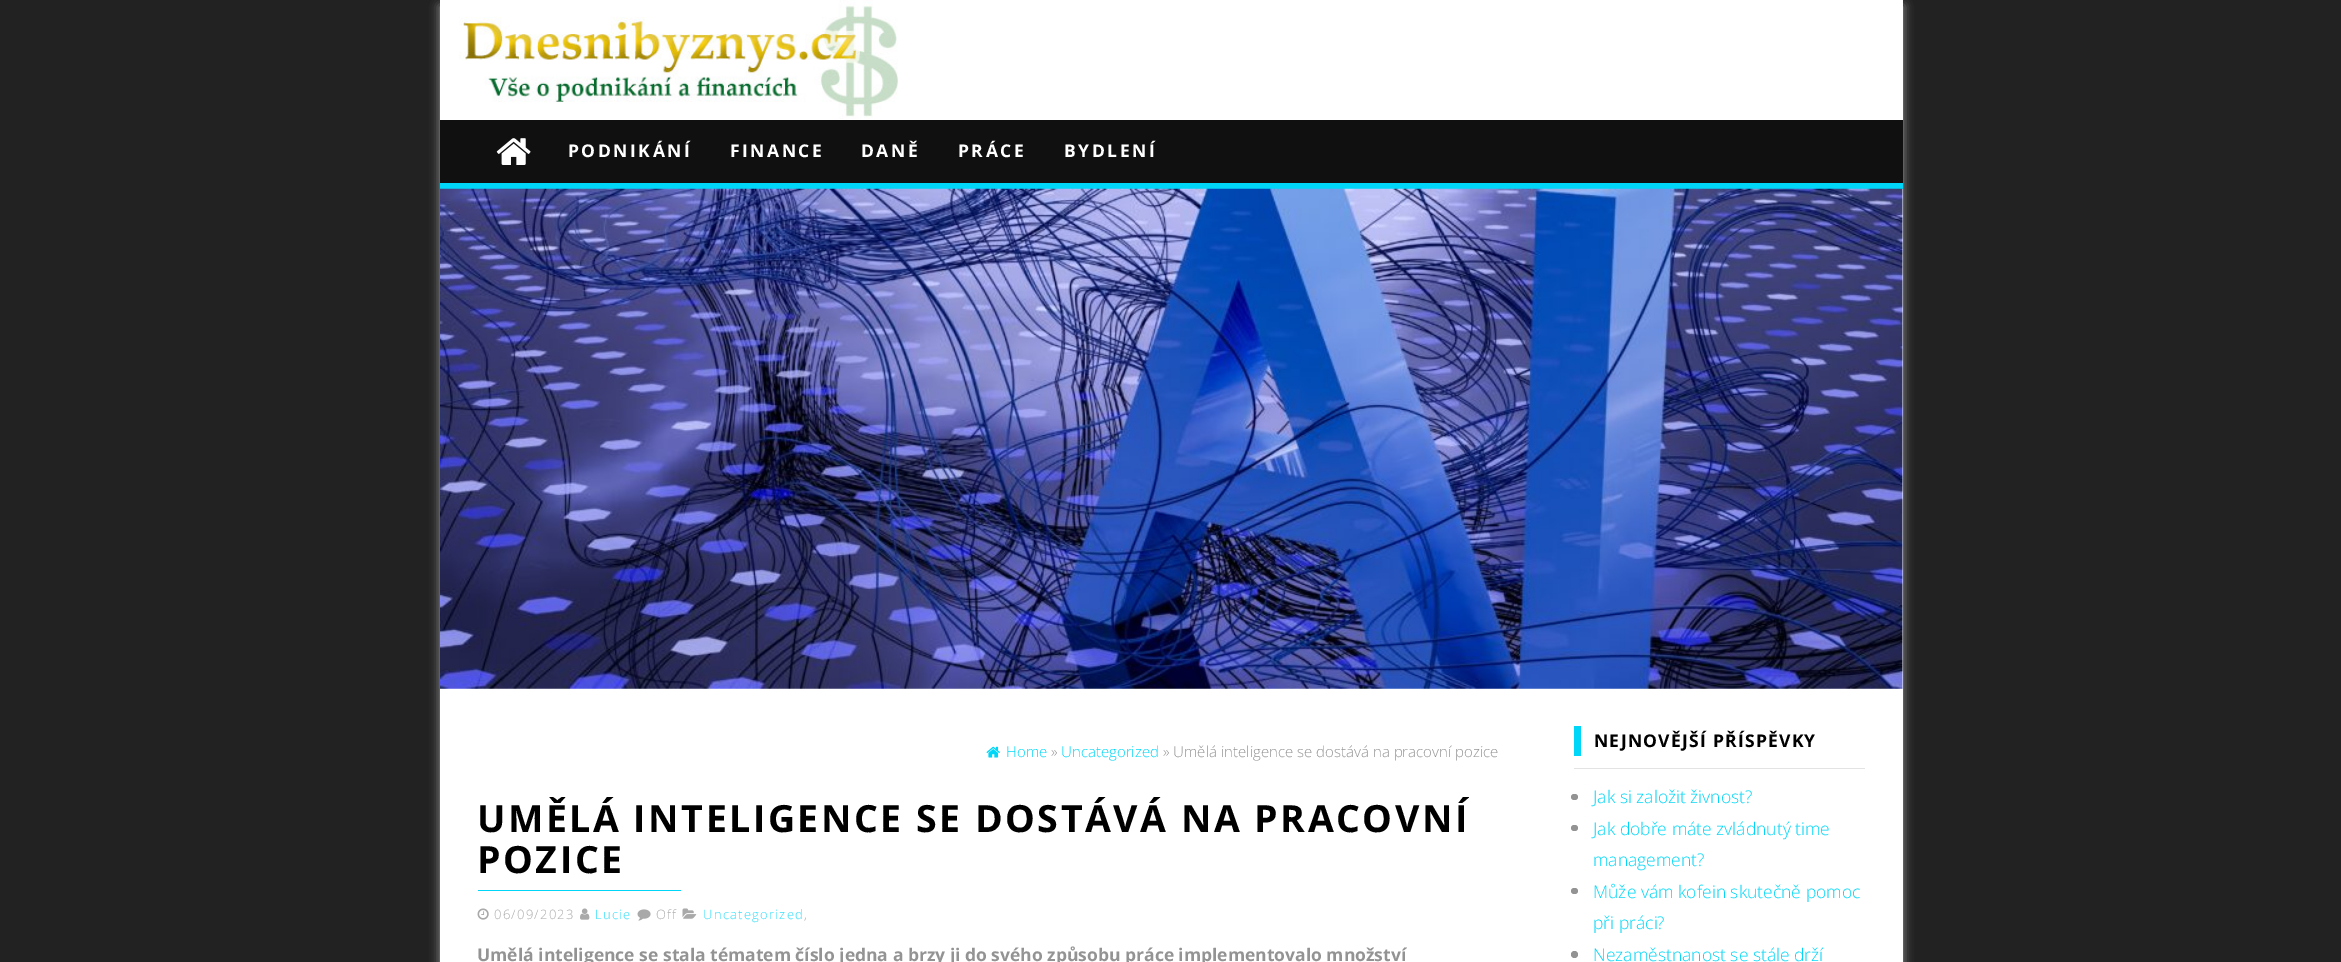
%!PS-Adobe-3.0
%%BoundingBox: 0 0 2341 962
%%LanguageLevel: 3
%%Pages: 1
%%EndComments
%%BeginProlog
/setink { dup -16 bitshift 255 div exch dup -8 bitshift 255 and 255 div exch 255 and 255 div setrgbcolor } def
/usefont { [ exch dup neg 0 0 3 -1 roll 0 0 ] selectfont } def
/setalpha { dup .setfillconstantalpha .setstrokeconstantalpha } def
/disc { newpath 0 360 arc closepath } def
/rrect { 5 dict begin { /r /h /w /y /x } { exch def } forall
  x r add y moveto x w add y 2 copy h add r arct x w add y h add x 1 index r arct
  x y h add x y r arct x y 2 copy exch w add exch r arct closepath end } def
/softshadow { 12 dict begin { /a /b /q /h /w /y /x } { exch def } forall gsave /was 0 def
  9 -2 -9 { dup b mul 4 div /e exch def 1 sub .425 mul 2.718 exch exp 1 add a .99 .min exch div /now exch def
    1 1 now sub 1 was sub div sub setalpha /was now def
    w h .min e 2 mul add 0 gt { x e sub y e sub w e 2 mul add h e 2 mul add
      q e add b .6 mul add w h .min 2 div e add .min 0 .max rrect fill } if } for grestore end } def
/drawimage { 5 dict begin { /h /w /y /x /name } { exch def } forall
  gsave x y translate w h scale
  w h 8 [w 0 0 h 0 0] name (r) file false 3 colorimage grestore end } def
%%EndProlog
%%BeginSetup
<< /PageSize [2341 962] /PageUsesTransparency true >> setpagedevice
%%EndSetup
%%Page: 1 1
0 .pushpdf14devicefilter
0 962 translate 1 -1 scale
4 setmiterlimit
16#222222 setink
0 0 2341 962 rectfill
16#A1A1A1 setink
440 6 1463 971 0 5 1 softshadow
16#FFFFFF setink
440 0 1463 120 rectfill
(img1.raw) 459 0 439 119 drawimage
16#00D6F7 setink
440 183 1463 6 rectfill
16#101010 setink
440 120 1463 63 rectfill
(img2.raw) 496 138 35 27 drawimage
/OpenSans-Bold 17.5 usefont
16#FFFFFF setink
568 157 moveto 2.5 0 (PODNIKÁNÍ) ashow
730 157 moveto 2.5 0 (FINANCE) ashow
861 157 moveto 2.5 0 (DANĚ) ashow
958 157 moveto 2.5 0 (PRÁCE) ashow
1064 157 moveto 2.5 0 (BYDLENÍ) ashow
440 189 1463 773 rectfill
(img3.raw) 440 188 1463 501 drawimage
(img4.raw) 986 746 14 12 drawimage
/OpenSans-Light 15 usefont
16#00D6F7 setink
1006 757 moveto (Home) show
16#939393 setink
1051 757 moveto (») show
16#00D6F7 setink
1061 757 moveto (Uncategorized) show
16#939393 setink
1163 757 moveto (» Umělá inteligence se dostává na pracovní pozice) show
/OpenSans-Bold 37.5 usefont
16#000000 setink
477 832 moveto 2.5 0 (UMĚLÁ INTELIGENCE SE DOSTÁVÁ NA PRACOVNÍ) ashow
477 873 moveto 2.5 0 (POZICE) ashow
16#00D6F7 setink
478 890 203 1 rectfill
(img5.raw) 477 908 12 12 drawimage
/OpenSans-Light 13 usefont
16#A9A9A9 setink
494 919 moveto 1.25 0 (06/09/2023) ashow
(img6.raw) 580 908 10 12 drawimage
16#33DEF9 setink
595 919 moveto 1.25 0 (Lucie) ashow
(img7.raw) 637 909 14 12 drawimage
16#A9A9A9 setink
656 919 moveto 1.25 0 (Off) ashow
(img8.raw) 682 908 15 11 drawimage
16#33DEF9 setink
703 919 moveto 1.25 0 (Uncategorized) ashow
16#A9A9A9 setink
804 919 moveto 1.25 0 (,) ashow
/OpenSans-Bold 17.5 usefont
16#939393 setink
477 961 moveto (Umělá inteligence se stala tématem číslo jedna a brzy ji do svého způsobu práce implementovalo množství) show
16#E3E3E3 setink
1574 768 291 1 rectfill
16#00D6F7 setink
1574 726 7 30 rectfill
16#000000 setink
1594 747 moveto 1.25 0 (NEJNOVĚJŠÍ PŘÍSPĚVKY) ashow
16#939393 setink
1571 794 7 6 3 rrect fill
/OpenSans-Light 17.5 usefont
16#00D6F7 setink
1593 803 moveto (Jak si založit živnost?) show
16#939393 setink
1571 825 7 6 3 rrect fill
16#00D6F7 setink
1593 835 moveto (Jak dobře máte zvládnutý time) show
1593 866 moveto (management?) show
16#939393 setink
1571 888 7 6 3 rrect fill
16#00D6F7 setink
1593 898 moveto (Může vám kofein skutečně pomoc) show
1593 929 moveto (při práci?) show
16#939393 setink
1574.5 954.5 3.5 disc fill
16#00D6F7 setink
1593 961 moveto (Nezaměstnanost se stále drží) show
.poppdf14devicefilter showpage
%%EOF
